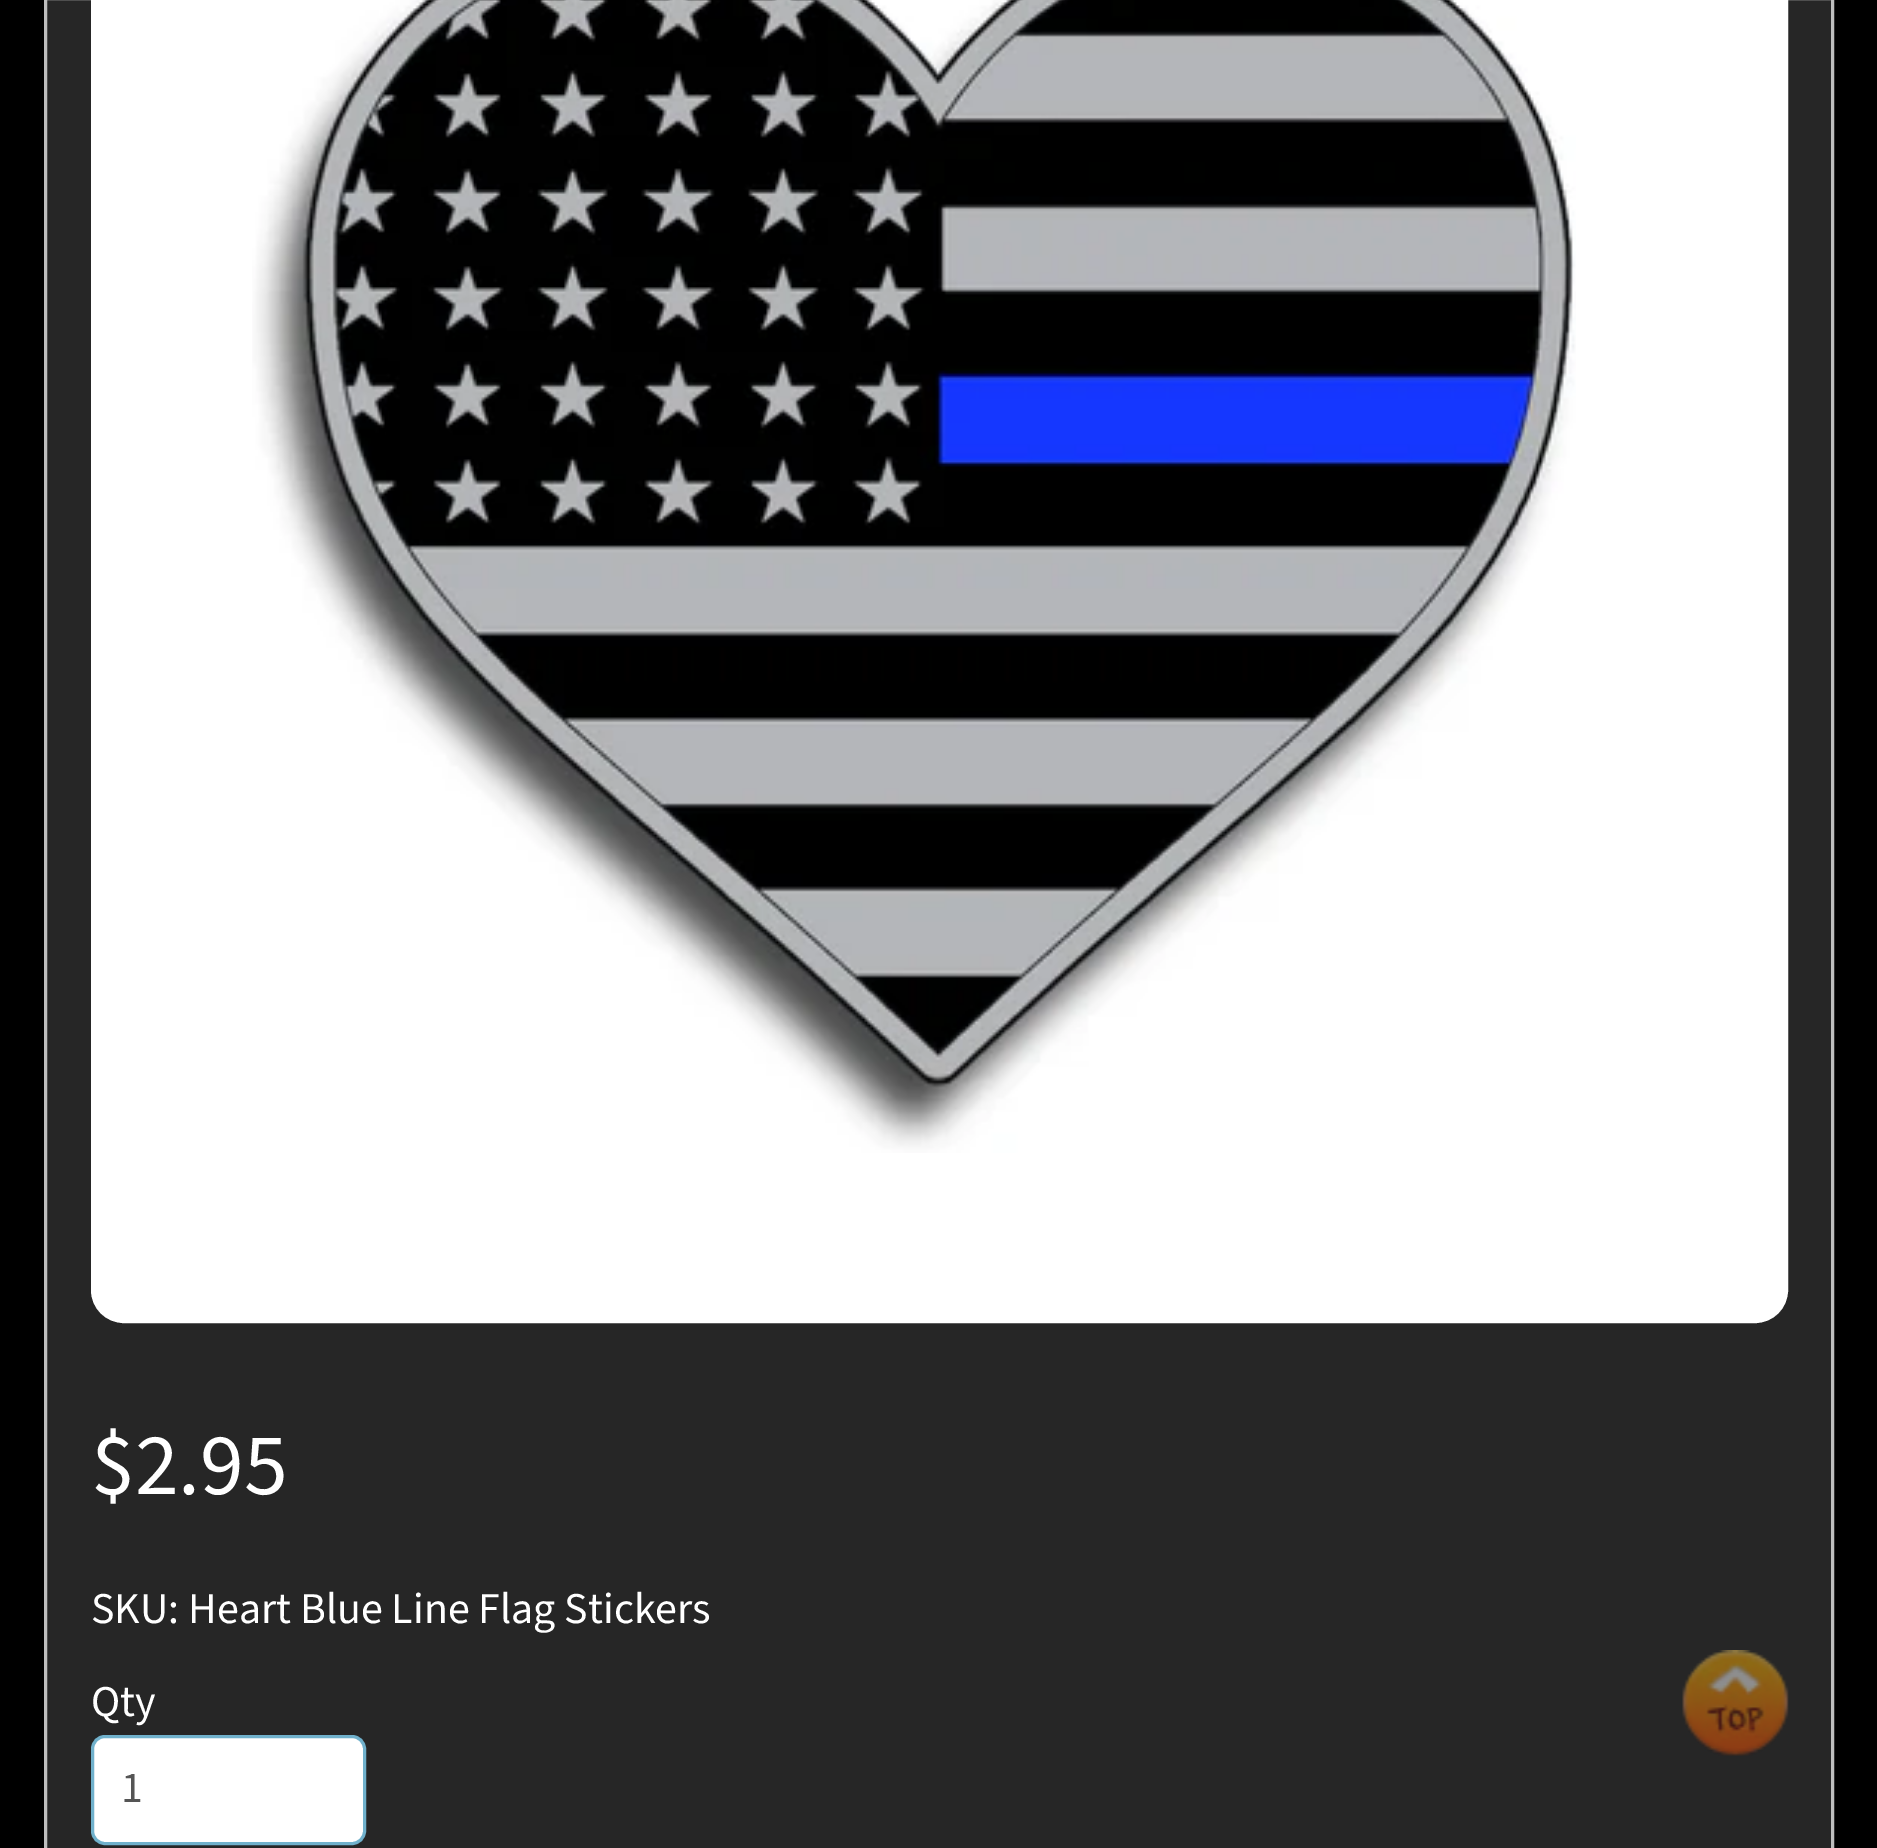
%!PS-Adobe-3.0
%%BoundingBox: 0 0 1877 1848
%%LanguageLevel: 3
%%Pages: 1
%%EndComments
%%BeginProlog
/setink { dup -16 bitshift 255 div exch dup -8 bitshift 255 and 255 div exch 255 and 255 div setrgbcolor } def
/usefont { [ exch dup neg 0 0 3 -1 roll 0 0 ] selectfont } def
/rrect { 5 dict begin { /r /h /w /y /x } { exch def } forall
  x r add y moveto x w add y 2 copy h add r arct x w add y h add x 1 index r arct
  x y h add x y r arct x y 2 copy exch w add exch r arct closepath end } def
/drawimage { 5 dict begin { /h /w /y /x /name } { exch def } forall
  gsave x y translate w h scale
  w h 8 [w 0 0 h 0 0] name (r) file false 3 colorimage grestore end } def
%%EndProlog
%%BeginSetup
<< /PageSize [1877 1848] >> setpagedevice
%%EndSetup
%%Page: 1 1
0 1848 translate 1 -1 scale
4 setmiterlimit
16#000000 setink
0 0 1877 1848 rectfill
16#262626 setink
45.5 -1.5 moveto 1832.5 -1.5 lineto 1832.5 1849.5 lineto 45.5 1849.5 lineto closepath gsave fill grestore
16#BEBEBE setink
3 setlinewidth
stroke
16#FFFFFF setink
92.5 -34.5 1694 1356 31.5 rrect gsave fill grestore
stroke
(img1.raw) 252 0 1324 1153 drawimage
/SourceSansPro-Regular 88 usefont
91 1494 moveto ($2.95) show
/SourceSansPro-Regular 44 usefont
91 1623 moveto (SKU: Heart Blue Line Flag Stickers) show
91 1716 moveto (Qty) show
92.5 1736.5 272 107 12.5 rrect gsave fill grestore
16#70B1CC setink
stroke
16#555555 setink
121 1802 moveto (1) show
(img2.raw) 1682 1650 107 106 drawimage
showpage
%%EOF
